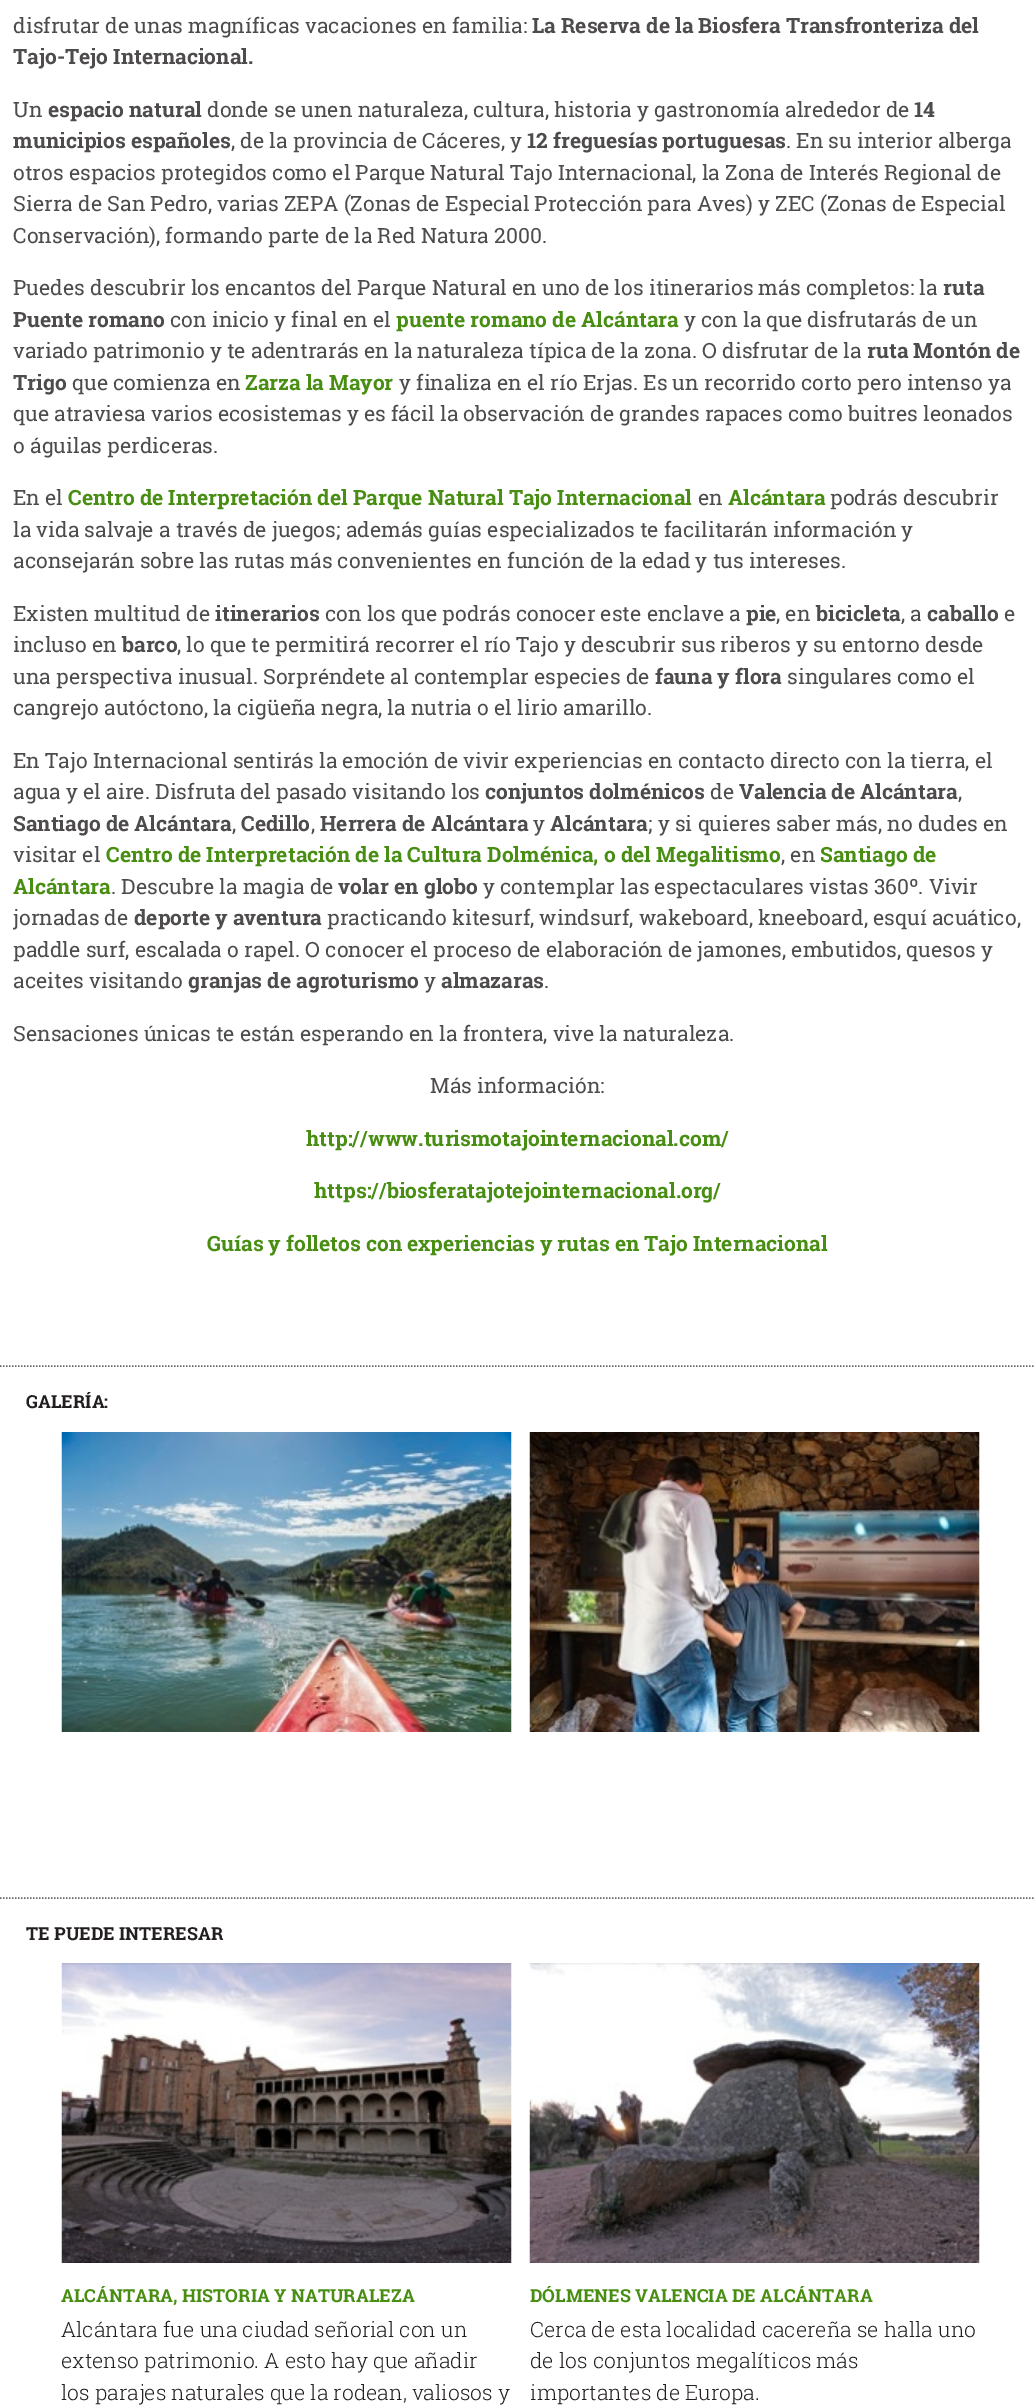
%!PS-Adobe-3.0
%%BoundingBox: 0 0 1034 2405
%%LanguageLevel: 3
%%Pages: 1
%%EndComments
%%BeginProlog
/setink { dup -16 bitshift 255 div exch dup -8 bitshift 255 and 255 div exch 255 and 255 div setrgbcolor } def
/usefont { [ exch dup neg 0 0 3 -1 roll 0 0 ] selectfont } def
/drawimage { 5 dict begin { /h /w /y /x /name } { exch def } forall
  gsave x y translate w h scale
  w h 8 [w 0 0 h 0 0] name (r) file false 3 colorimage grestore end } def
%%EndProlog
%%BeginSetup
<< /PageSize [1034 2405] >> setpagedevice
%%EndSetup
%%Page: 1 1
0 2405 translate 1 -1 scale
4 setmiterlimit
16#FFFFFF setink
0 0 1034 2405 rectfill
/RobotoSlab-Regular 21 usefont
16#4E4B4C setink
13 33 moveto (disfrutar de unas magníficas vacaciones en familia:) show
/RobotoSlab-Bold 21 usefont
532 33 moveto (La Reserva de la Biosfera Transfronteriza del) show
13 64 moveto (Tajo-Tejo Internacional.) show
/RobotoSlab-Regular 21 usefont
13 117 moveto (Un) show
/RobotoSlab-Bold 21 usefont
48 117 moveto (espacio natural) show
/RobotoSlab-Regular 21 usefont
207 117 moveto (donde se unen naturaleza, cultura, historia y gastronomía alrededor de) show
/RobotoSlab-Bold 21 usefont
914 117 moveto (14) show
13 148 moveto (municipios españoles) show
/RobotoSlab-Regular 21 usefont
231 148 moveto (, de la provincia de Cáceres, y) show
/RobotoSlab-Bold 21 usefont
527 148 moveto (12 freguesías portuguesas) show
/RobotoSlab-Regular 21 usefont
[
    [(. En su interior alberga) 786 148]
    [(otros espacios protegidos como el Parque Natural Tajo Internacional, la Zona de Interés Regional de) 13 180]
    [(Sierra de San Pedro, varias ZEPA \(Zonas de Especial Protección para Aves\) y ZEC \(Zonas de Especial) 13 211]
    [(Conservación\), formando parte de la Red Natura 2000.) 13 243]
    [(Puedes descubrir los encantos del Parque Natural en uno de los itinerarios más completos: la) 13 295]
] { aload pop moveto show } forall
/RobotoSlab-Bold 21 usefont
943 295 moveto (ruta) show
13 327 moveto (Puente romano) show
/RobotoSlab-Regular 21 usefont
170 327 moveto (con inicio y final en el) show
/RobotoSlab-Bold 21 usefont
16#488E13 setink
396 327 moveto (puente romano de Alcántara) show
/RobotoSlab-Regular 21 usefont
16#4E4B4C setink
684 327 moveto (y con la que disfrutarás de un) show
13 358 moveto (variado patrimonio y te adentrarás en la naturaleza típica de la zona. O disfrutar de la) show
/RobotoSlab-Bold 21 usefont
867 358 moveto (ruta Montón de) show
13 390 moveto (Trigo) show
/RobotoSlab-Regular 21 usefont
72 390 moveto (que comienza en) show
/RobotoSlab-Bold 21 usefont
16#488E13 setink
245 390 moveto (Zarza la Mayor) show
/RobotoSlab-Regular 21 usefont
16#4E4B4C setink
[
    [(y finaliza en el río Erjas. Es un recorrido corto pero intenso ya) 399 390]
    [(que atraviesa varios ecosistemas y es fácil la observación de grandes rapaces como buitres leonados) 13 421]
    [(o águilas perdiceras.) 13 453]
    [(En el) 13 505]
] { aload pop moveto show } forall
/RobotoSlab-Bold 21 usefont
16#488E13 setink
68 505 moveto (Centro de Interpretación del Parque Natural Tajo Internacional) show
/RobotoSlab-Regular 21 usefont
16#4E4B4C setink
698 505 moveto (en) show
/RobotoSlab-Bold 21 usefont
16#488E13 setink
728 505 moveto (Alcántara) show
/RobotoSlab-Regular 21 usefont
16#4E4B4C setink
[
    [(podrás descubrir) 830 505]
    [(la vida salvaje a través de juegos; además guías especializados te facilitarán información y) 13 537]
    [(aconsejarán sobre las rutas más convenientes en función de la edad y tus intereses.) 13 568]
    [(Existen multitud de) 13 621]
] { aload pop moveto show } forall
/RobotoSlab-Bold 21 usefont
215 621 moveto (itinerarios) show
/RobotoSlab-Regular 21 usefont
325 621 moveto (con los que podrás conocer este enclave a) show
/RobotoSlab-Bold 21 usefont
746 621 moveto (pie) show
/RobotoSlab-Regular 21 usefont
776 621 moveto (, en) show
/RobotoSlab-Bold 21 usefont
816 621 moveto (bicicleta) show
/RobotoSlab-Regular 21 usefont
901 621 moveto (, a) show
/RobotoSlab-Bold 21 usefont
927 621 moveto (caballo) show
/RobotoSlab-Regular 21 usefont
1004 621 moveto (e) show
13 652 moveto (incluso en) show
/RobotoSlab-Bold 21 usefont
122 652 moveto (barco) show
/RobotoSlab-Regular 21 usefont
177 652 moveto (, lo que te permitirá recorrer el río Tajo y descubrir sus riberos y su entorno desde) show
13 684 moveto (una perspectiva inusual. Sorpréndete al contemplar especies de) show
/RobotoSlab-Bold 21 usefont
655 684 moveto (fauna y flora) show
/RobotoSlab-Regular 21 usefont
[
    [(singulares como el) 787 684]
    [(cangrejo autóctono, la cigüeña negra, la nutria o el lirio amarillo.) 13 715]
    [(En Tajo Internacional sentirás la emoción de vivir experiencias en contacto directo con la tierra, el) 13 768]
    [(agua y el aire. Disfruta del pasado visitando los) 13 799]
] { aload pop moveto show } forall
/RobotoSlab-Bold 21 usefont
485 799 moveto (conjuntos dolménicos) show
/RobotoSlab-Regular 21 usefont
710 799 moveto (de) show
/RobotoSlab-Bold 21 usefont
739 799 moveto (Valencia de Alcántara) show
/RobotoSlab-Regular 21 usefont
958 799 moveto (,) show
/RobotoSlab-Bold 21 usefont
13 831 moveto (Santiago de Alcántara) show
/RobotoSlab-Regular 21 usefont
232 831 moveto (,) show
/RobotoSlab-Bold 21 usefont
241 831 moveto (Cedillo) show
/RobotoSlab-Regular 21 usefont
311 831 moveto (,) show
/RobotoSlab-Bold 21 usefont
320 831 moveto (Herrera de Alcántara) show
/RobotoSlab-Regular 21 usefont
533 831 moveto (y) show
/RobotoSlab-Bold 21 usefont
550 831 moveto (Alcántara) show
/RobotoSlab-Regular 21 usefont
648 831 moveto (; y si quieres saber más, no dudes en) show
13 862 moveto (visitar el) show
/RobotoSlab-Bold 21 usefont
16#488E13 setink
106 862 moveto (Centro de Interpretación de la Cultura Dolménica, o del Megalitismo) show
/RobotoSlab-Regular 21 usefont
16#4E4B4C setink
781 862 moveto (, en) show
/RobotoSlab-Bold 21 usefont
16#488E13 setink
820 862 moveto (Santiago de) show
13 894 moveto (Alcántara) show
/RobotoSlab-Regular 21 usefont
16#4E4B4C setink
111 894 moveto (. Descubre la magia de) show
/RobotoSlab-Bold 21 usefont
338 894 moveto (volar en globo) show
/RobotoSlab-Regular 21 usefont
483 894 moveto (y contemplar las espectaculares vistas 360º. Vivir) show
13 925 moveto (jornadas de) show
/RobotoSlab-Bold 21 usefont
134 925 moveto (deporte y aventura) show
/RobotoSlab-Regular 21 usefont
[
    [(practicando kitesurf, windsurf, wakeboard, kneeboard, esquí acuático,) 327 925]
    [(paddle surf, escalada o rapel. O conocer el proceso de elaboración de jamones, embutidos, quesos y) 13 957]
    [(aceites visitando) 13 988]
] { aload pop moveto show } forall
/RobotoSlab-Bold 21 usefont
188 988 moveto (granjas de agroturismo) show
/RobotoSlab-Regular 21 usefont
424 988 moveto (y) show
/RobotoSlab-Bold 21 usefont
441 988 moveto (almazaras) show
/RobotoSlab-Regular 21 usefont
[
    [(.) 544 988]
    [(Sensaciones únicas te están esperando en la frontera, vive la naturaleza.) 13 1041]
    [(Más información:) 430 1093]
] { aload pop moveto show } forall
/RobotoSlab-Bold 21 usefont
16#488E13 setink
[
    [(http://www.turismotajointernacional.com/) 306 1146]
    [(https://biosferatajotejointernacional.org/) 314 1198]
    [(Guías y folletos con experiencias y rutas en Tajo Internacional) 207 1251]
] { aload pop moveto show } forall
16#666666 setink
1.5 setlinewidth
[1.5 1.5] 0 setdash
0 1366 moveto 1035 1366 lineto stroke
/RobotoSlab-Bold 18 usefont
16#231F20 setink
26 1408 moveto (GALERÍA:) show
(img1.raw) 61 1432 451 300 drawimage
(img2.raw) 529 1432 451 300 drawimage
16#666666 setink
0 1898 moveto 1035 1898 lineto stroke
16#231F20 setink
26 1940 moveto (TE PUEDE INTERESAR) show
(img3.raw) 61 1963 451 300 drawimage
16#488E13 setink
61 2302 moveto (ALCÁNTARA, HISTORIA Y NATURALEZA) show
/RobotoSlab-Light 21 usefont
16#231F20 setink
[
    [(Alcántara fue una ciudad señorial con un) 61 2337]
    [(extenso patrimonio. A esto hay que añadir) 61 2368]
    [(los parajes naturales que la rodean, valiosos y) 61 2400]
] { aload pop moveto show } forall
(img4.raw) 529 1963 451 300 drawimage
/RobotoSlab-Bold 18 usefont
16#488E13 setink
530 2302 moveto (DÓLMENES VALENCIA DE ALCÁNTARA) show
/RobotoSlab-Light 21 usefont
16#231F20 setink
[
    [(Cerca de esta localidad cacereña se halla uno) 530 2337]
    [(de los conjuntos megalíticos más) 530 2368]
    [(importantes de Europa.) 530 2400]
] { aload pop moveto show } forall
showpage
%%EOF
